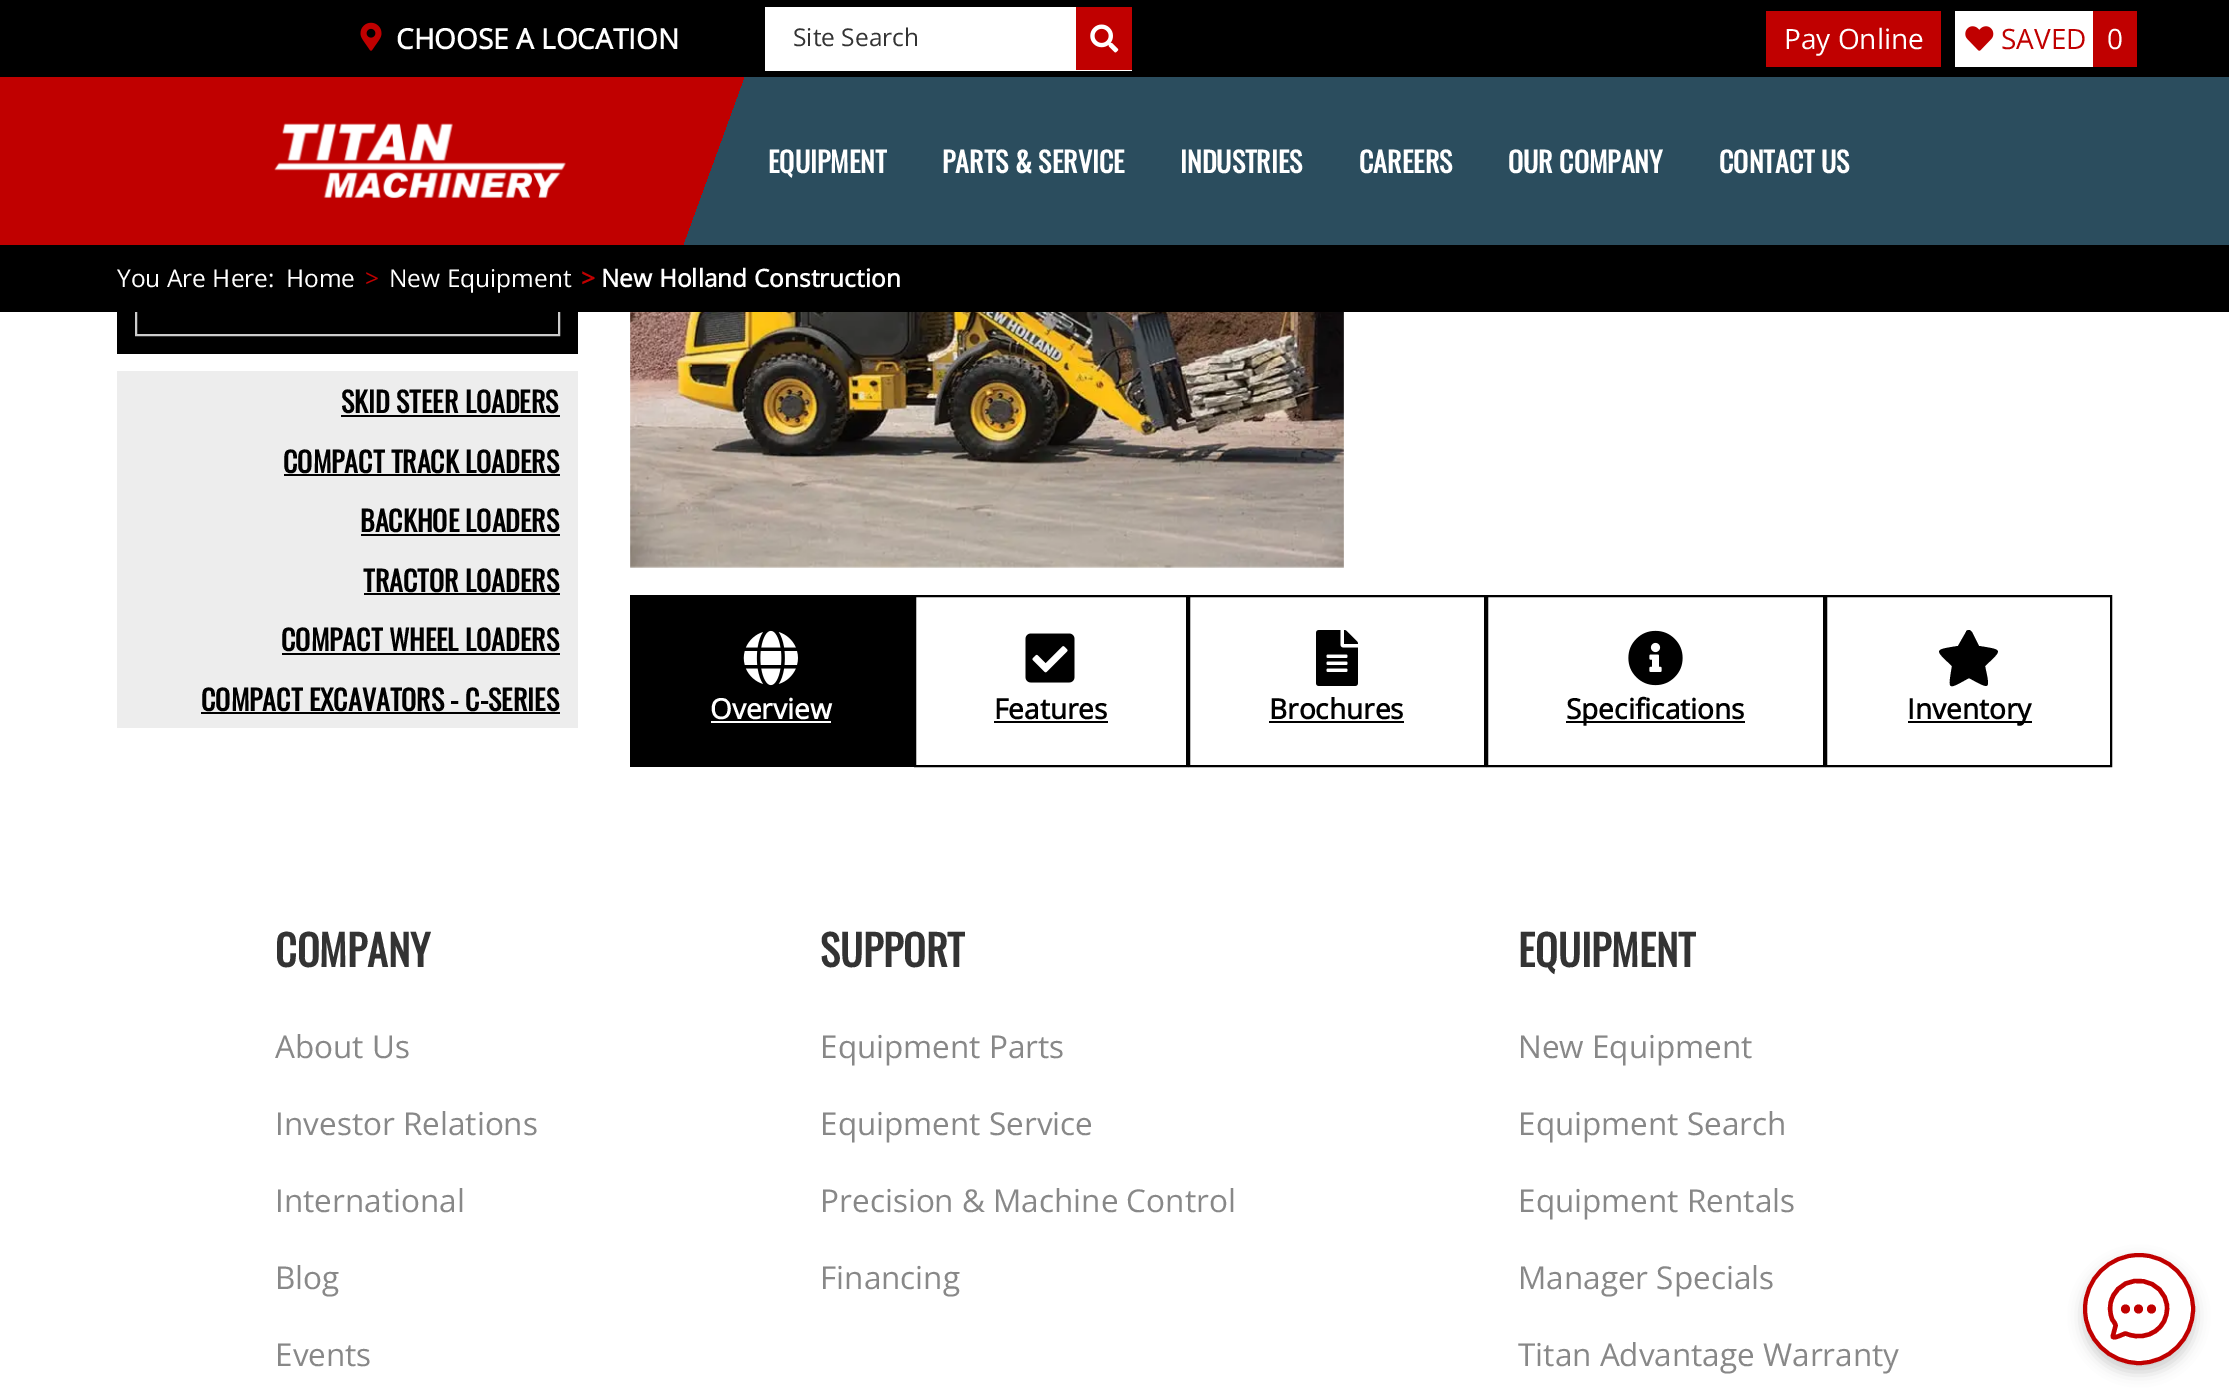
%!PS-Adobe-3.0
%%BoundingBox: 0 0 2229 1399
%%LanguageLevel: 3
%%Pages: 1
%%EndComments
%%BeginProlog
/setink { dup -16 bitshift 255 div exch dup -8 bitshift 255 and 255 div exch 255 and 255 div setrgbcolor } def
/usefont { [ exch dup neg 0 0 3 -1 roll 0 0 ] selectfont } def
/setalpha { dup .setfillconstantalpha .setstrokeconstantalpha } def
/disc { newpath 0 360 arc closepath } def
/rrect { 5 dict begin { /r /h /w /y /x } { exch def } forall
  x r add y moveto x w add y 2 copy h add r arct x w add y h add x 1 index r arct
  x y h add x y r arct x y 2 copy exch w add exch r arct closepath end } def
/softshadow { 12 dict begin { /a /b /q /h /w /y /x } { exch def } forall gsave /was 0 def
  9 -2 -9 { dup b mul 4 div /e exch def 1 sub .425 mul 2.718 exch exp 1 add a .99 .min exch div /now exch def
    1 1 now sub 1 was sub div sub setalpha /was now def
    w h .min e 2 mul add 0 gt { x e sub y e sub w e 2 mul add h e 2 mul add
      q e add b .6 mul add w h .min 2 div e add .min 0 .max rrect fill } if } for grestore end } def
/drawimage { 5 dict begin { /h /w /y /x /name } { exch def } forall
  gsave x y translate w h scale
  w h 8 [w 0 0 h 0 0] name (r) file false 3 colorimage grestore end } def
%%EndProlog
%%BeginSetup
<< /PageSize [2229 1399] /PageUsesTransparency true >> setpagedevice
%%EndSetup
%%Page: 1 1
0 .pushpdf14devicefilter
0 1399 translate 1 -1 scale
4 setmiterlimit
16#FFFFFF setink
0 0 2229 1399 rectfill
16#000000 setink
0 0 1579 77 rectfill
(img1.raw) 360 22 22 29 drawimage
/OpenSans-Bold 28 usefont
16#FFFFFF setink
396 49 moveto (CHOOSE A LOCATION) show
765 7 311 60 rectfill
765 67 367 4 rectfill
/OpenSans-Regular 24.5 usefont
16#333333 setink
793 46 moveto (Site Search) show
16#C00000 setink
1076 7 56 63 rectfill
(img2.raw) 1090 24 29 29 drawimage
16#000000 setink
1579 0 650 77 rectfill
16#C00000 setink
1766 11 175 56 rectfill
/OpenSans-Regular 28 usefont
16#FFFFFF setink
1784 49 moveto (Pay Online) show
1955 11 138 56 rectfill
(img3.raw) 1965 26 29 25 drawimage
16#C00000 setink
2001 49 moveto (SAVED) show
2093 11 44 56 rectfill
16#FFFFFF setink
2107 49 moveto (0) show
16#C00000 setink
0 77 275 168 rectfill
gsave 275 77 moveto 1955 77 lineto 1955 245 lineto 275 245 lineto closepath clip newpath
<< /ShadingType 2 /ColorSpace /DeviceRGB /Coords [346 -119 1883 441] /Extend [true true] /Function << /FunctionType 3 /Domain [0 1] /Functions [<< /FunctionType 2 /Domain [0 1] /C0 [0.753 0 0] /C1 [0.753 0 0] /N 1 >> << /FunctionType 2 /Domain [0 1] /C0 [0.169 0.302 0.369] /C1 [0.169 0.302 0.369] /N 1 >>] /Bounds [0.27] /Encode [0 1 0 1] >> >> shfill grestore
(img4.raw) 274 123 292 75 drawimage
/Oswald-Bold 28 usefont
16#FFFFFF setink
[
    [(EQUIPMENT) 768 173]
    [(PARTS & SERVICE) 942 173]
    [(INDUSTRIES) 1180 173]
    [(CAREERS) 1359 173]
    [(OUR COMPANY) 1508 173]
    [(CONTACT US) 1719 173]
] { aload pop moveto show } forall
16#2B4D5E setink
1955 77 274 168 rectfill
16#000000 setink
117 312 461 42 rectfill
16#CCCCCC setink
2 setlinewidth
136 278 423 57 rectstroke
16#000000 setink
0 245 2229 67 rectfill
/OpenSans-Regular 24.5 usefont
16#FFFFFF setink
117 287 moveto (You Are Here:) show
286 287 moveto (Home) show
16#C00000 setink
365 287 moveto (>) show
16#FFFFFF setink
389 287 moveto (New Equipment) show
/OpenSans-Bold 24.5 usefont
16#C00000 setink
581 287 moveto (>) show
16#FFFFFF setink
601 287 moveto (New Holland Construction) show
16#EDEDED setink
117 371 461 357 rectfill
/Oswald-Bold 28 usefont
16#000000 setink
341 413 moveto (SKID STEER LOADERS) show
341 415 219 2 rectfill
283 473 moveto (COMPACT TRACK LOADERS) show
284 474 276 2 rectfill
360 532 moveto (BACKHOE LOADERS) show
361 534 199 2 rectfill
363 592 moveto (TRACTOR LOADERS) show
364 593 196 2 rectfill
281 651 moveto (COMPACT WHEEL LOADERS) show
282 653 278 2 rectfill
201 711 moveto (COMPACT EXCAVATORS - C-SERIES) show
201 712 359 2 rectfill
(img5.raw) 630 312 714 256 drawimage
630 595 284 172 rectfill
(img6.raw) 743 630 55 56 drawimage
/OpenSans-Bold 28 usefont
16#FFFFFF setink
710 719 moveto (Overview) show
711 721 120 2 rectfill
16#000000 setink
915 596 272 170 rectstroke
(img7.raw) 1025 633 50 50 drawimage
994 719 moveto (Features) show
994 721 114 2 rectfill
1189 596 296 170 rectstroke
(img8.raw) 1316 630 42 56 drawimage
1269 719 moveto (Brochures) show
1269 721 135 2 rectfill
1487 596 337 170 rectstroke
(img9.raw) 1628 630 55 56 drawimage
1566 721 179 2 rectfill
1566 719 moveto (Specifications) show
1826 596 285 170 rectstroke
1966 632 moveto 1966 631 1967 630 1969 630 curveto 1970 630 1971 631 1972 632 curveto 1979 646 lineto 2003 650 2003 649 1985 666 curveto 1990 690 1991 690 1969 678 curveto 1947 690 1948 691 1952 666 curveto 1934 649 1934 650 1958 646 curveto closepath fill
1908 721 124 2 rectfill
1907 719 moveto (Inventory) show
/Oswald-Bold 42 usefont
16#333333 setink
275 967 moveto (COMPANY) show
/OpenSans-Regular 31.5 usefont
16#888888 setink
[
    [(About Us) 275 1058]
    [(Investor Relations) 275 1135]
    [(International) 275 1212]
    [(Blog) 275 1289]
    [(Events) 275 1366]
] { aload pop moveto show } forall
/Oswald-Bold 42 usefont
16#333333 setink
820 967 moveto (SUPPORT) show
/OpenSans-Regular 31.5 usefont
16#888888 setink
[
    [(Equipment Parts) 820 1058]
    [(Equipment Service) 820 1135]
    [(Precision & Machine Control) 820 1212]
    [(Financing) 820 1289]
] { aload pop moveto show } forall
/Oswald-Bold 42 usefont
16#333333 setink
1518 967 moveto (EQUIPMENT) show
/OpenSans-Regular 31.5 usefont
16#888888 setink
[
    [(New Equipment) 1518 1058]
    [(Equipment Search) 1518 1135]
    [(Equipment Rentals) 1518 1212]
    [(Manager Specials) 1518 1289]
    [(Titan Advantage Warranty) 1518 1366]
] { aload pop moveto show } forall
16#000000 setink
2083 1260 112 112 56 7 0.2 softshadow
16#FFFFFF setink
2139 1309 54 disc gsave fill grestore
16#C00000 setink
4 setlinewidth
stroke
4.4 setlinewidth
1 setlinecap
2115.5 1326 moveto 2116 1324.5 2113 1320.5 2112.5 1320 curveto 2109.5 1313 2109 1304.5 2112.5 1297.5 curveto 2124 1270.5 2165.5 1278 2167 1307 curveto 2168 1328.5 2147.5 1341 2128.5 1334.5 curveto 2125.5 1333.5 lineto 2124 1333.5 2111.5 1340.5 2113 1335.5 curveto closepath stroke
2125.5 1309 4.5 disc fill
2138.5 1309 4.5 disc fill
2151.5 1309 4.5 disc fill
.poppdf14devicefilter showpage
%%EOF
